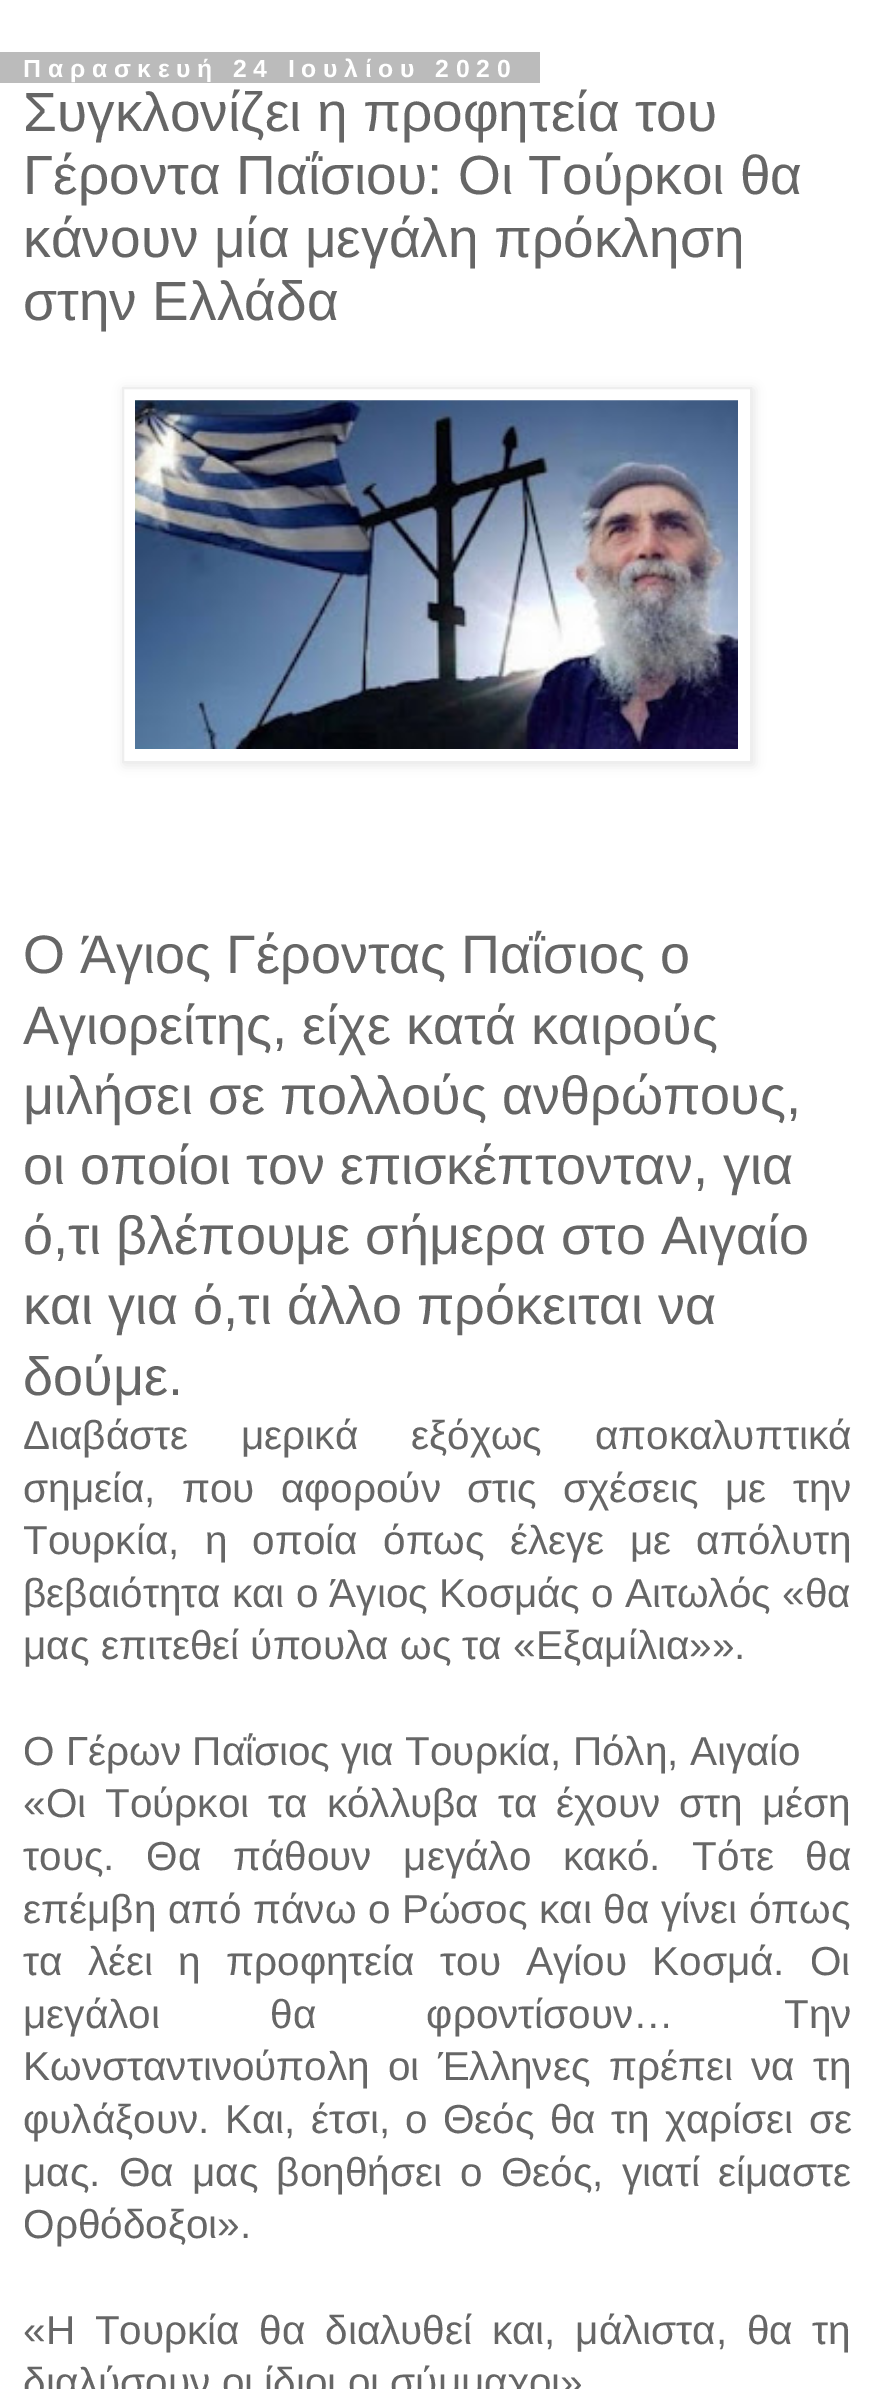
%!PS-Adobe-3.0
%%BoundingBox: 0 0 871 2389
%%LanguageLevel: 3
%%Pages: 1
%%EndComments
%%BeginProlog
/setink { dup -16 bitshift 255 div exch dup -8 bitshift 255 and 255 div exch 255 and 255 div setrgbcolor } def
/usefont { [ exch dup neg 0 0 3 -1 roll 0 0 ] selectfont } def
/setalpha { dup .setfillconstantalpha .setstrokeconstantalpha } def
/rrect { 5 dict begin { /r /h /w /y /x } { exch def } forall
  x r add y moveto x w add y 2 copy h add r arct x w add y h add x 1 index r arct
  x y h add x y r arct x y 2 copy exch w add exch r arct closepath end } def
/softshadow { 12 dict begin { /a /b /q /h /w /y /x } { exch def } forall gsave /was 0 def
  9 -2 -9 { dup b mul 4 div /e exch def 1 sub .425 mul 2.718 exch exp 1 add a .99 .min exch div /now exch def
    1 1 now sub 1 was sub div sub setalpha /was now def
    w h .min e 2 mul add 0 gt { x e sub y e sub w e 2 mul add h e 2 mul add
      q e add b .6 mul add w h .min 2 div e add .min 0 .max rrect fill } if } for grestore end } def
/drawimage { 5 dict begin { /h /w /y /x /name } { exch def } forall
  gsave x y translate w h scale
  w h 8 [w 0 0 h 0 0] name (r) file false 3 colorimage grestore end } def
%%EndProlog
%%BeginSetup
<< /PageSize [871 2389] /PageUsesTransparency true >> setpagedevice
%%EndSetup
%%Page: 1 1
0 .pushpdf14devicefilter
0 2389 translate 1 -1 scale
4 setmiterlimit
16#FFFFFF setink
0 0 871 2389 rectfill
16#BBBBBB setink
0 52 540 31 rectfill
/LiberationSans-Bold 24.75 usefont
16#FFFFFF setink
23 77 moveto 6.75 0 (Παρασκευή 24 Ιουλίου 2020) ashow
/LiberationSans-Regular 55.1 usefont
16#666666 setink
[
    [(Συγκλονίζει η προφητεία του) 23 131]
    [(Γέροντα Παΐσιου: Οι Τούρκοι θα) 23 194]
    [(κάνουν μία μεγάλη πρόκληση) 23 257]
    [(στην Ελλάδα) 23 320]
] { aload pop moveto show } forall
16#000000 setink
124 389 630 376 0 5.5 0.1 softshadow
16#FFFFFF setink
123 388 moveto 751 388 lineto 751 762 lineto 123 762 lineto closepath gsave fill grestore
16#EEEEEE setink
2 setlinewidth
stroke
(img1.raw) 135 400 603 349 drawimage
/LiberationSans-Regular 54 usefont
16#666666 setink
[
    [(Ο Άγιος Γέροντας Παΐσιος ο) 23 973]
    [(Αγιορείτης, είχε κατά καιρούς) 23 1044]
    [(μιλήσει σε πολλούς ανθρώπους,) 23 1114]
    [(οι οποίοι τον επισκέπτονταν, για) 23 1184]
    [(ό,τι βλέπουμε σήμερα στο Αιγαίο) 23 1254]
    [(και για ό,τι άλλο πρόκειται να) 23 1324]
    [(δούμε.) 23 1395]
] { aload pop moveto show } forall
/LiberationSans-Regular 40.5 usefont
23 1449 moveto 41.5 0 32 (Διαβάστε μερικά εξόχως αποκαλυπτικά) widthshow
23 1502 moveto 15 0 32 (σημεία, που αφορούν στις σχέσεις με την) widthshow
23 1554 moveto 14 0 32 (Τουρκία, η οποία όπως έλεγε με απόλυτη) widthshow
[
    [(βεβαιότητα και ο Άγιος Κοσμάς ο Αιτωλός «θα) 23 1607]
    [(μας επιτεθεί ύπουλα ως τα «Εξαμίλια»».) 23 1659]
    [(Ο Γέρων Παΐσιος για Τουρκία, Πόλη, Αιγαίο) 23 1765]
] { aload pop moveto show } forall
23 1817 moveto 7.75 0 32 («Οι Τούρκοι τα κόλλυβα τα έχουν στη μέση) widthshow
23 1870 moveto 20.5 0 32 (τους. Θα πάθουν μεγάλο κακό. Τότε θα) widthshow
23 1923 moveto 0.25 0 32 (επέμβη από πάνω ο Ρώσος και θα γίνει όπως) widthshow
23 1975 moveto 14 0 32 (τα λέει η προφητεία του Αγίου Κοσμά. Οι) widthshow
23 2028 moveto 99 0 32 (μεγάλοι θα φροντίσουν… Την) widthshow
23 2080 moveto 7 0 32 (Κωνσταντινούπολη οι Έλληνες πρέπει να τη) widthshow
23 2133 moveto 4 0 32 (φυλάξουν. Και, έτσι, ο Θεός θα τη χαρίσει σε) widthshow
23 2186 moveto 7 0 32 (μας. Θα μας βοηθήσει ο Θεός, γιατί είμαστε) widthshow
23 2238 moveto (Ορθόδοξοι».) show
23 2344 moveto 8.5 0 32 («Η Τουρκία θα διαλυθεί και, μάλιστα, θα τη) widthshow
23 2396 moveto (διαλύσουν οι ίδιοι οι σύμμαχοι») show
.poppdf14devicefilter showpage
%%EOF
